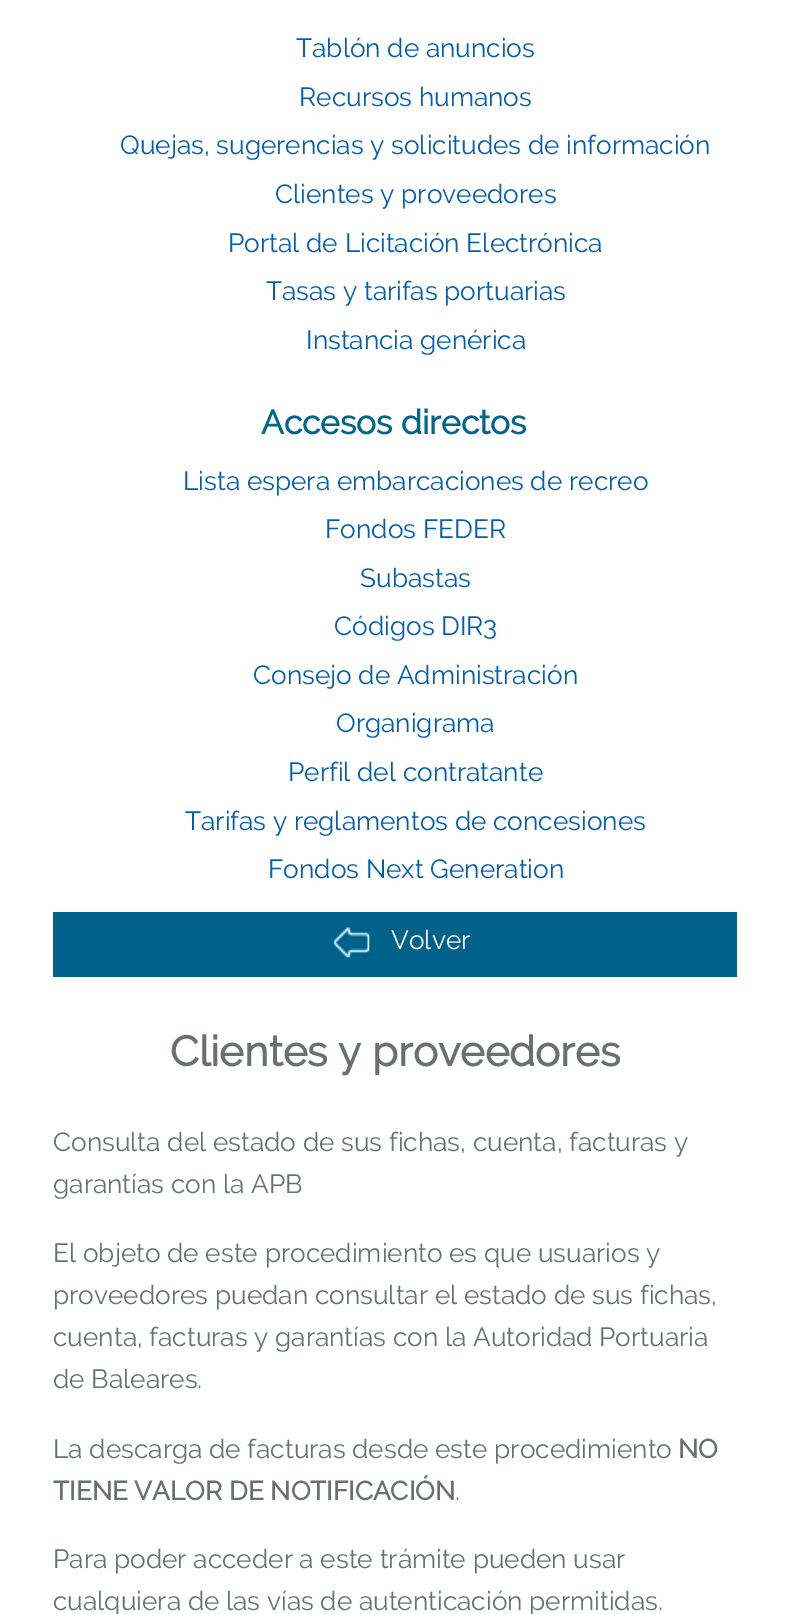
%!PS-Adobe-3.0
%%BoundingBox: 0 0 789 1614
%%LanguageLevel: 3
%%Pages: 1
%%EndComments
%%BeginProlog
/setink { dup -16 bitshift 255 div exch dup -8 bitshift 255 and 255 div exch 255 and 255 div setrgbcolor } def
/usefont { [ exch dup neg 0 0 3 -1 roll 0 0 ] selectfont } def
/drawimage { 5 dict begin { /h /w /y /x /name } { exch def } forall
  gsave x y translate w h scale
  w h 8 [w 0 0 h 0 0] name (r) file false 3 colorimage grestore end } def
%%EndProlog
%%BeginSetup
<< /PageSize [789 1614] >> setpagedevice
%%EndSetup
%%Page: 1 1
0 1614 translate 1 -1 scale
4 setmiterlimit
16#FFFFFF setink
0 0 789 1614 rectfill
/Raleway-Regular 26.25 usefont
16#005EB5 setink
[
    [(Tablón de anuncios) 296 57]
    [(Recursos humanos) 299 106]
    [(Quejas, sugerencias y solicitudes de información) 120 154]
    [(Clientes y proveedores) 275 203]
    [(Portal de Licitación Electrónica) 228 252]
    [(Tasas y tarifas portuarias) 266 300]
    [(Instancia genérica) 306 349]
] { aload pop moveto show } forall
/Raleway-Bold 33.5 usefont
16#00668E setink
261 434 moveto (Accesos directos) show
/Raleway-Regular 26.25 usefont
16#005EB5 setink
[
    [(Lista espera embarcaciones de recreo) 183 490]
    [(Fondos FEDER) 325 538]
    [(Subastas) 360 587]
    [(Códigos DIR3) 334 635]
    [(Consejo de Administración) 253 684]
    [(Organigrama) 336 732]
    [(Perfil del contratante) 288 781]
    [(Tarifas y reglamentos de concesiones) 185 830]
    [(Fondos Next Generation) 268 878]
] { aload pop moveto show } forall
16#00618B setink
53 912 684 65 rectfill
(img1.raw) 332 927 38 31 drawimage
16#FFFFFF setink
391 949 moveto (Volver) show
/Raleway-Bold 42 usefont
16#69716F setink
170 1066 moveto (Clientes y proveedores) show
/Raleway-Regular 26.25 usefont
[
    [(Consulta del estado de sus fichas, cuenta, facturas y) 53 1151]
    [(garantías con la APB) 53 1193]
    [(El objeto de este procedimiento es que usuarios y) 53 1262]
    [(proveedores puedan consultar el estado de sus fichas,) 53 1304]
    [(cuenta, facturas y garantías con la Autoridad Portuaria) 53 1346]
    [(de Baleares.) 53 1388]
    [(La descarga de facturas desde este procedimiento) 53 1458]
] { aload pop moveto show } forall
/Raleway-Bold 26.25 usefont
678 1458 moveto (NO) show
53 1500 moveto (TIENE VALOR DE NOTIFICACIÓN) show
/Raleway-Regular 26.25 usefont
[
    [(.) 455 1500]
    [(Para poder acceder a este trámite pueden usar) 53 1568]
    [(cualquiera de las vías de autenticación permitidas.) 53 1610]
] { aload pop moveto show } forall
showpage
%%EOF
